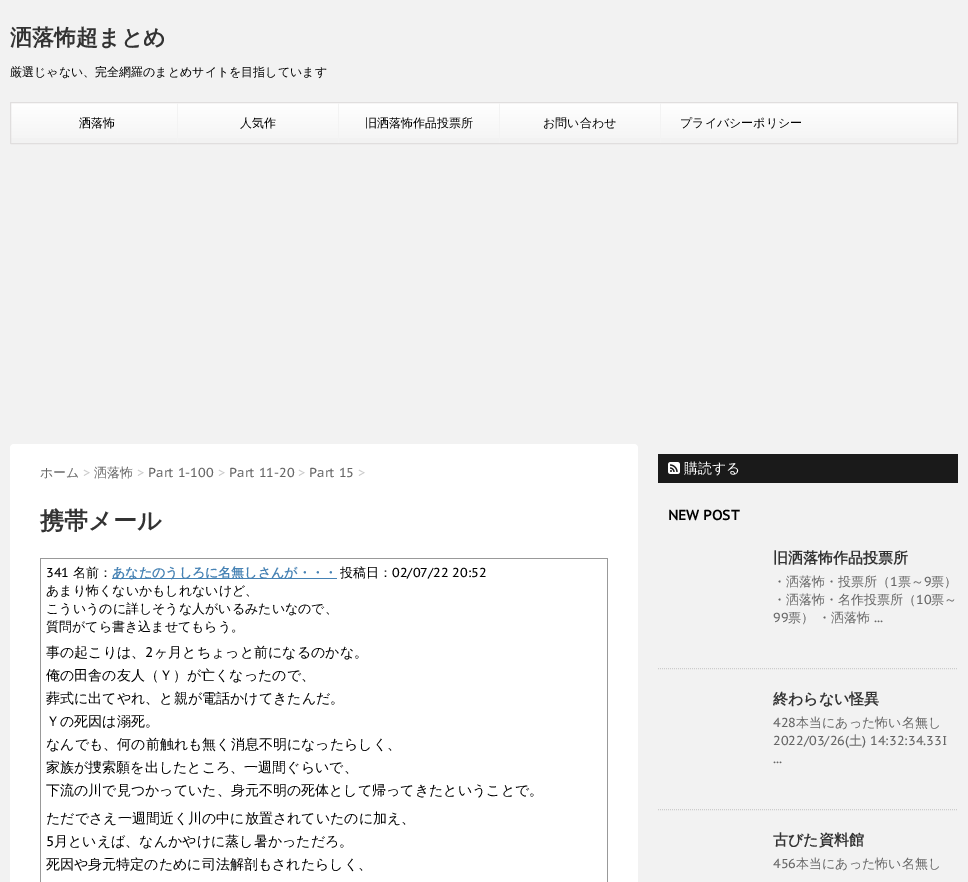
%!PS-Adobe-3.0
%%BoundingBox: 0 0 968 882
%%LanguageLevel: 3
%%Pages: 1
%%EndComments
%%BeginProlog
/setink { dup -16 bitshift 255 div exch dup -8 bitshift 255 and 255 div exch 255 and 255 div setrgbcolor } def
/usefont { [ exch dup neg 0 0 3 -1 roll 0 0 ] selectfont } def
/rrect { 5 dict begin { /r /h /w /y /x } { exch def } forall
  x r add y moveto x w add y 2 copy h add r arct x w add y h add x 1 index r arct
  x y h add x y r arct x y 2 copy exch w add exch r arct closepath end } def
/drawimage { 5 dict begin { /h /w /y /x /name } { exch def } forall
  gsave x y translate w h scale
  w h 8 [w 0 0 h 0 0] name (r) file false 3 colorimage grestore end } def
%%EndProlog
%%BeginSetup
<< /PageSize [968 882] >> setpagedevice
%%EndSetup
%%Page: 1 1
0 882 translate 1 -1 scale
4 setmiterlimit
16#F2F2F2 setink
0 0 968 882 rectfill
/WenQuanYiZenHei-Bold 22 usefont
16#333333 setink
10 45 moveto (洒落怖超まとめ) show
/WenQuanYiZenHei-Medium 12 usefont
16#000000 setink
10 76 moveto (厳選じゃない、完全網羅のまとめサイトを目指しています) show
gsave 11 103 moveto 957 103 lineto 957 138 lineto 11 138 lineto closepath clip newpath
<< /ShadingType 2 /ColorSpace /DeviceRGB /Coords [484 103 484 143] /Extend [true true] /Function << /FunctionType 2 /Domain [0 1] /C0 [1 1 1] /C1 [0.953 0.953 0.953] /N 1 >> >> shfill grestore
16#E0DEDE setink
10.5 102.5 947 41 0.5 rrect stroke
16#F3F3F3 setink
177 103 1 40 rectfill
16#000000 setink
79 127 moveto (洒落怖) show
16#F3F3F3 setink
338 103 1 40 rectfill
16#000000 setink
240 127 moveto (人気作) show
16#F3F3F3 setink
499 103 1 40 rectfill
16#000000 setink
365 127 moveto (旧洒落怖作品投票所) show
16#F3F3F3 setink
660 103 1 40 rectfill
16#000000 setink
543 127 moveto (お問い合わせ) show
680 127 moveto (プライバシーポリシー) show
16#FFFFFF setink
10 444 628 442 4 rrect fill
/WenQuanYiZenHei-Medium 13 usefont
16#666666 setink
40 477 moveto (ホーム) show
/PTSansCaption-Regular 13 usefont
16#CCCCCC setink
83 477 moveto (>) show
/WenQuanYiZenHei-Medium 13 usefont
16#666666 setink
94 477 moveto (洒落怖) show
/PTSansCaption-Regular 13 usefont
16#CCCCCC setink
137 477 moveto (>) show
16#666666 setink
148 477 moveto (Part 1-100) show
16#CCCCCC setink
218 477 moveto (>) show
16#666666 setink
229 477 moveto (Part 11-20) show
16#CCCCCC setink
298 477 moveto (>) show
16#666666 setink
309 477 moveto (Part 15) show
16#CCCCCC setink
358 477 moveto (>) show
/WenQuanYiZenHei-Bold 24 usefont
16#333333 setink
40 529 moveto (携帯メール) show
[
    [40 558 568 1 16#999999]
    [607 558 1 324 16#999999]
    [40 558 1 324 16#999999]
] { aload pop setink rectfill } forall
/PTSansCaption-Regular 13 usefont
16#000000 setink
46 577 moveto (341) show
/WenQuanYiZenHei-Medium 13 usefont
73 577 moveto (名前：) show
16#4682B4 setink
112 578 225 1 rectfill
/WenQuanYiZenHei-Bold 13 usefont
112 577 moveto (あなたのうしろに名無しさんが・・・) show
/WenQuanYiZenHei-Medium 13 usefont
16#000000 setink
340 577 moveto (投稿日：) show
/PTSansCaption-Regular 13 usefont
392 577 moveto (02/07/22 20:52) show
/WenQuanYiZenHei-Medium 13 usefont
[
    [(あまり怖くないかもしれないけど、) 46 595]
    [(こういうのに詳しそうな人がいるみたいなので、) 46 613]
    [(質問がてら書き込ませてもらう。) 46 631]
] { aload pop moveto show } forall
/WenQuanYiZenHei-Medium 14 usefont
46 657 moveto (事の起こりは、) show
/PTSansCaption-Regular 14 usefont
145 657 moveto (2) show
/WenQuanYiZenHei-Medium 14 usefont
[
    [(ヶ月とちょっと前になるのかな。) 154 657]
    [(俺の田舎の友人（Ｙ）が亡くなったので、) 46 680]
    [(葬式に出てやれ、と親が電話かけてきたんだ。) 46 703]
    [(Ｙの死因は溺死。) 46 726]
    [(なんでも、何の前触れも無く消息不明になったらしく、) 46 749]
    [(家族が捜索願を出したところ、一週間ぐらいで、) 46 772]
    [(下流の川で見つかっていた、身元不明の死体として帰ってきたということで。) 46 795]
    [(ただでさえ一週間近く川の中に放置されていたのに加え、) 46 823]
] { aload pop moveto show } forall
/PTSansCaption-Regular 14 usefont
46 846 moveto (5) show
/WenQuanYiZenHei-Medium 14 usefont
54 846 moveto (月といえば、なんかやけに蒸し暑かっただろ。) show
46 869 moveto (死因や身元特定のために司法解剖もされたらしく、) show
16#1A1A1A setink
658 454 300 29 rectfill
(img1.raw) 668 462 12 12 drawimage
16#FFFFFF setink
684 473 moveto (購読する) show
/PTSansCaption-Bold 14 usefont
16#000000 setink
668 520 moveto (NEW POST) show
16#CCCCCC setink
[1 1] 0 setdash
658 668.5 moveto 958 668.5 lineto stroke
/WenQuanYiZenHei-Bold 15 usefont
16#333333 setink
773 563 moveto (旧洒落怖作品投票所) show
/WenQuanYiZenHei-Medium 13 usefont
16#666666 setink
773 586 moveto (・洒落怖・投票所（) show
/PTSansCaption-Regular 13 usefont
890 586 moveto (1) show
/WenQuanYiZenHei-Medium 13 usefont
898 586 moveto (票～) show
/PTSansCaption-Regular 13 usefont
924 586 moveto (9) show
/WenQuanYiZenHei-Medium 13 usefont
931 586 moveto (票）) show
773 604 moveto (・洒落怖・名作投票所（) show
/PTSansCaption-Regular 13 usefont
916 604 moveto (10) show
/WenQuanYiZenHei-Medium 13 usefont
931 604 moveto (票～) show
/PTSansCaption-Regular 13 usefont
773 622 moveto (99) show
/WenQuanYiZenHei-Medium 13 usefont
788 622 moveto (票） ・洒落怖) show
/PTSansCaption-Regular 13 usefont
874 622 moveto (...) show
16#CCCCCC setink
658 809.5 moveto 958 809.5 lineto stroke
/WenQuanYiZenHei-Bold 15 usefont
16#333333 setink
773 704 moveto (終わらない怪異) show
/PTSansCaption-Regular 13 usefont
16#666666 setink
773 727 moveto (428) show
/WenQuanYiZenHei-Medium 13 usefont
796 727 moveto (本当にあった怖い名無し) show
/PTSansCaption-Regular 13 usefont
773 745 moveto (2022/03/26\() show
/WenQuanYiZenHei-Medium 13 usefont
849 745 moveto (土) show
/PTSansCaption-Regular 13 usefont
862 745 moveto (\) 14:32:34.33I) show
773 763 moveto (...) show
/WenQuanYiZenHei-Bold 15 usefont
16#333333 setink
773 845 moveto (古びた資料館) show
/PTSansCaption-Regular 13 usefont
16#666666 setink
773 868 moveto (456) show
/WenQuanYiZenHei-Medium 13 usefont
796 868 moveto (本当にあった怖い名無し) show
showpage
%%EOF
